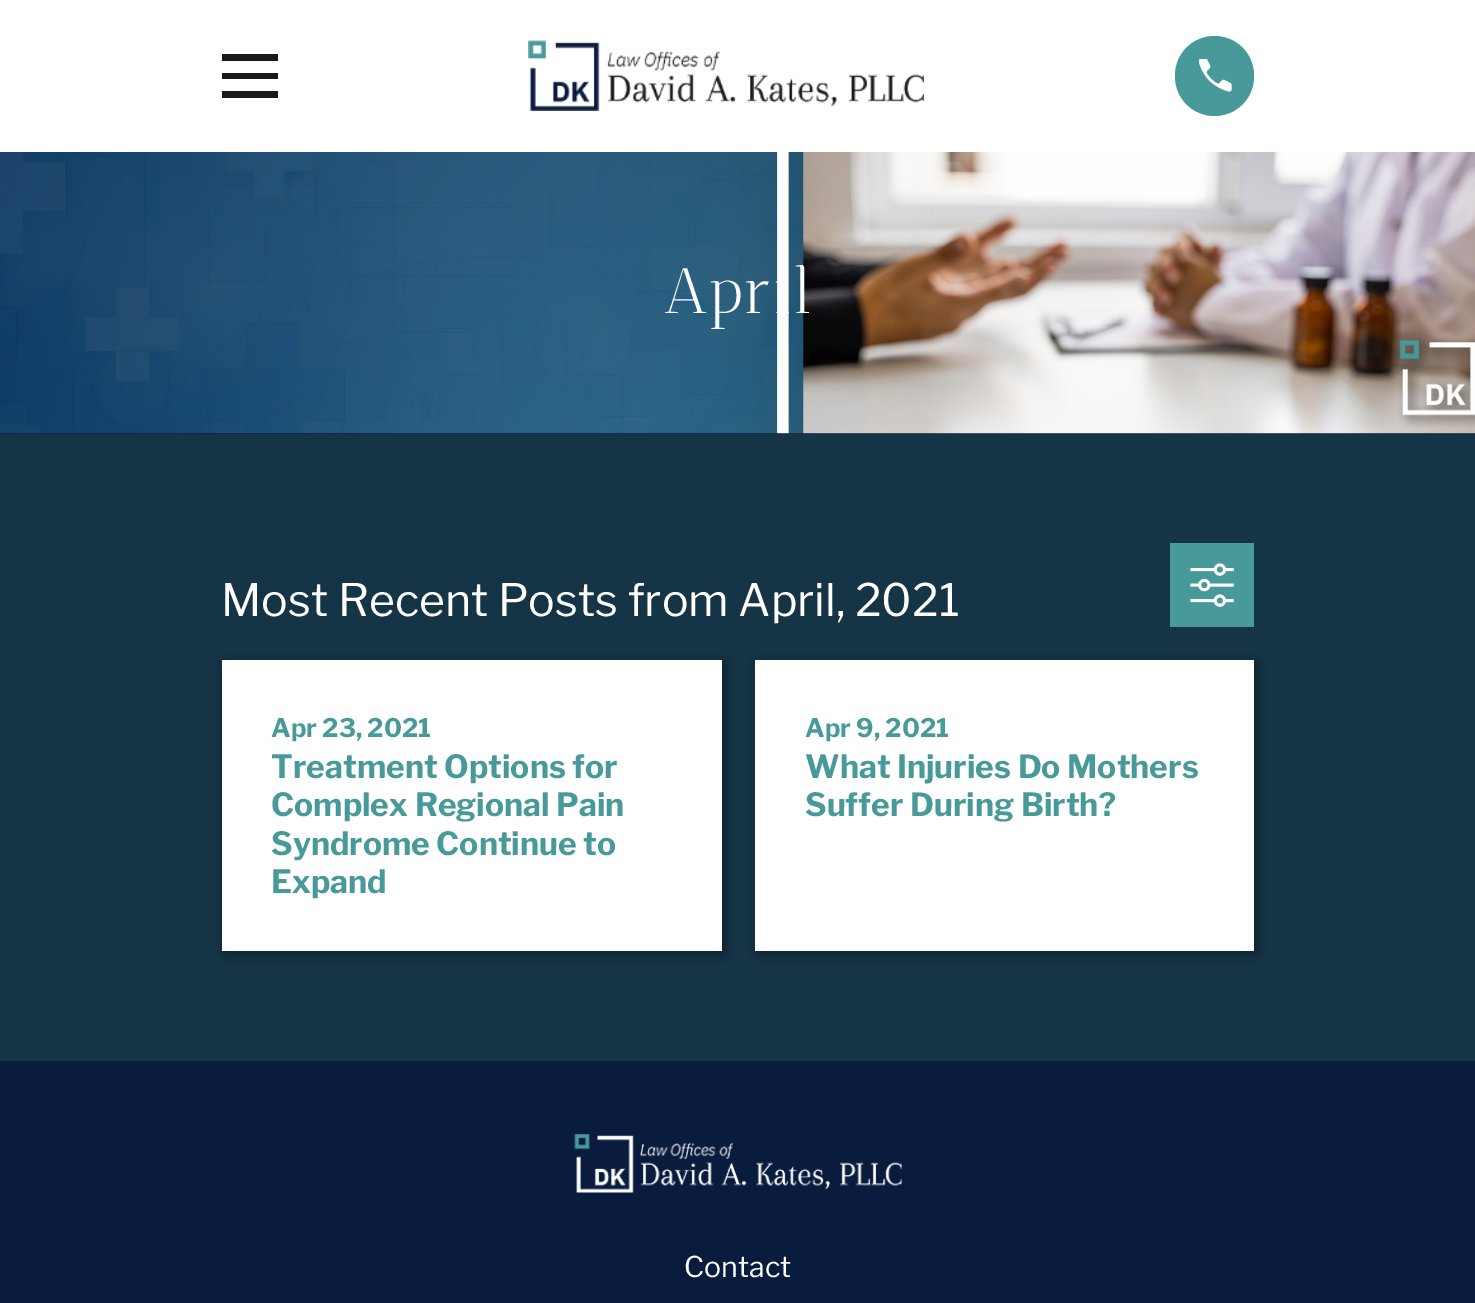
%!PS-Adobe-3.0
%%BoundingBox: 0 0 1475 1303
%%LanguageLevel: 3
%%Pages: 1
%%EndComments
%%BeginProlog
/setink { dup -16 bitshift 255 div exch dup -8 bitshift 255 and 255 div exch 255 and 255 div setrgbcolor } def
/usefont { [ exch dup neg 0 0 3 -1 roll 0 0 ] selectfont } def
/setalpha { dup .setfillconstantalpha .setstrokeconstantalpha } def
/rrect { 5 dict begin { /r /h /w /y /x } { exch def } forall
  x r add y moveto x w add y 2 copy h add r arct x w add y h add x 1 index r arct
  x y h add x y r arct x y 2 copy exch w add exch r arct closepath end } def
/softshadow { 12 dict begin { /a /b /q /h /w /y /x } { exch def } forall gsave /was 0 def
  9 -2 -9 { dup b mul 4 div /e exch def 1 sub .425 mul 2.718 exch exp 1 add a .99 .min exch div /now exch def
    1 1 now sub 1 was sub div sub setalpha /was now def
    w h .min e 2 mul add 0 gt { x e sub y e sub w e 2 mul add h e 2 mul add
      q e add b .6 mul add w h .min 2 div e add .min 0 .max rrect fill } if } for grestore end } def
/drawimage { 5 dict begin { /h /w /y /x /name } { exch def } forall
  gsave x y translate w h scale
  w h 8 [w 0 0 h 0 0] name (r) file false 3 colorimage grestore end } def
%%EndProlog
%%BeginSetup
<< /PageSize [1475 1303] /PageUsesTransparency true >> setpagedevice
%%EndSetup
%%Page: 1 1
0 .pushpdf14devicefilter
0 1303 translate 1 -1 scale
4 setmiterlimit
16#153547 setink
0 0 1475 1303 rectfill
16#FFFFFF setink
0 0 1475 152 rectfill
16#191919 setink
222 54 moveto 222 61 lineto 278 61 lineto 278 54 lineto closepath 222 73 moveto 222 79 lineto 278 79 lineto 278 73 lineto closepath 222 91 moveto 222 98 lineto 278 98 lineto 278 91 lineto closepath fill
(img1.raw) 528 40 396 71 drawimage
16#479A99 setink
1175 36 79 80 39.5 rrect fill
(img2.raw) 1199 59 33 33 drawimage
16#0A1C3E setink
0 433 1475 1 rectfill
(img3.raw) 0 152 1475 282 drawimage
/AnticDidone-Regular 64 usefont
16#FFFFFF setink
664 313 moveto (April) show
/LibreFranklin-Regular 44.6 usefont
221 616 moveto (Most Recent Posts from April, 2021) show
16#479A99 setink
1170 543 84 84 rectfill
(img4.raw) 1190 563 44 44 drawimage
16#000000 setink
225 663 500 291 0 6.5 0.4 softshadow
16#FFFFFF setink
222 660 500 291 rectfill
/LibreFranklin-Bold 25.5 usefont
16#479A99 setink
271 737 moveto (Apr 23, 2021) show
/LibreFranklin-Bold 31.9 usefont
[
    [(Treatment Options for) 271 778]
    [(Complex Regional Pain) 271 816]
    [(Syndrome Continue to) 271 855]
    [(Expand) 271 893]
] { aload pop moveto show } forall
16#000000 setink
758 663 499 291 0 6.5 0.4 softshadow
16#FFFFFF setink
755 660 499 291 rectfill
/LibreFranklin-Bold 25.5 usefont
16#479A99 setink
805 737 moveto (Apr 9, 2021) show
/LibreFranklin-Bold 31.9 usefont
805 778 moveto (What Injuries Do Mothers) show
805 816 moveto (Suffer During Birth?) show
16#0A1C3E setink
0 1061 1475 242 rectfill
(img5.raw) 574 1134 328 59 drawimage
/LibreFranklin-Regular 28.5 usefont
16#FFFFFF setink
684 1277 moveto (Contact) show
.poppdf14devicefilter showpage
%%EOF
